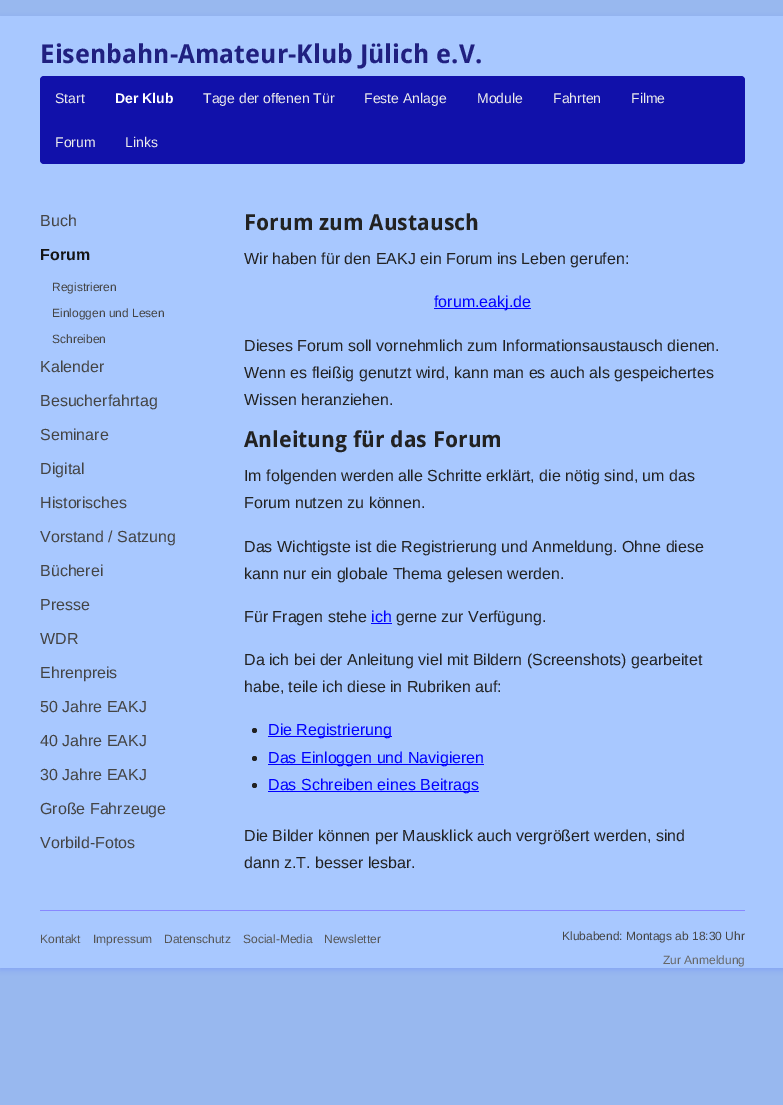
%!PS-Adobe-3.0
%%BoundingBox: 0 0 783 1105
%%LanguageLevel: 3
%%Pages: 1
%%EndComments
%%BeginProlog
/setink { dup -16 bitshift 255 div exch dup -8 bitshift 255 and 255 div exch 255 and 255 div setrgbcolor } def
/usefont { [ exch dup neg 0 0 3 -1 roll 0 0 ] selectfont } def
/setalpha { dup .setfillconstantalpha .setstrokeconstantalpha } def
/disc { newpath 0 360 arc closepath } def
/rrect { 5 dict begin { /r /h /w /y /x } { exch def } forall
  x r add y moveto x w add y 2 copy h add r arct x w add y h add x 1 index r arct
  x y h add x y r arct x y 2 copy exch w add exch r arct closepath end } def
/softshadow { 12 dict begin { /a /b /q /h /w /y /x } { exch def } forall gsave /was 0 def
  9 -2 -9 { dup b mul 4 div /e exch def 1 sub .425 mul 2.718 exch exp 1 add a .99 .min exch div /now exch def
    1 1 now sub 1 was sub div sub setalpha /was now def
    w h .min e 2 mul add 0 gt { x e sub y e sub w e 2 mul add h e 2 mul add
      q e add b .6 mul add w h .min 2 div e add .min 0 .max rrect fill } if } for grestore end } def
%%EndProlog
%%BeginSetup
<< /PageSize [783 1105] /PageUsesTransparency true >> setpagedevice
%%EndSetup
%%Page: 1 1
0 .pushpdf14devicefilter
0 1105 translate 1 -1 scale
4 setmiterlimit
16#98B8EF setink
0 0 783 1105 rectfill
16#5878FF setink
0 18 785 952 0 3 0.3 softshadow
16#A8C8FF setink
0 16 783 952 rectfill
/DroidSans-Bold 26 usefont
16#202080 setink
40 63 moveto (Eisenbahn-Amateur-Klub Jülich e.V.) show
16#1111AA setink
40 76 705 88 4 rrect fill
/LiberationSans-Regular 14 usefont
16#ECECEC setink
55 103 moveto (Start) show
/LiberationSans-Bold 14 usefont
16#FFFFFF setink
115 103 moveto (Der Klub) show
/LiberationSans-Regular 14 usefont
16#ECECEC setink
[
    [(Tage der offenen Tür) 203 103]
    [(Feste Anlage) 364 103]
    [(Module) 477 103]
    [(Fahrten) 553 103]
    [(Filme) 631 103]
    [(Forum) 55 147]
    [(Links) 125 147]
] { aload pop moveto show } forall
/LiberationSans-Regular 16 usefont
16#444444 setink
40 226 moveto (Buch) show
/LiberationSans-Bold 16 usefont
16#141414 setink
40 260 moveto (Forum) show
/LiberationSans-Regular 12 usefont
16#444444 setink
[
    [(Registrieren) 52 291]
    [(Einloggen und Lesen) 52 317]
    [(Schreiben) 52 343]
] { aload pop moveto show } forall
/LiberationSans-Regular 16 usefont
[
    [(Kalender) 40 372]
    [(Besucherfahrtag) 40 406]
    [(Seminare) 40 440]
    [(Digital) 40 474]
    [(Historisches) 40 508]
    [(Vorstand / Satzung) 40 542]
    [(Bücherei) 40 576]
    [(Presse) 40 610]
    [(WDR) 40 644]
    [(Ehrenpreis) 40 678]
    [(50 Jahre EAKJ) 40 712]
    [(40 Jahre EAKJ) 40 746]
    [(30 Jahre EAKJ) 40 780]
    [(Große Fahrzeuge) 40 814]
    [(Vorbild-Fotos) 40 848]
] { aload pop moveto show } forall
/DroidSans-Bold 22 usefont
16#222222 setink
244 230 moveto (Forum zum Austausch) show
/LiberationSans-Regular 16 usefont
244 264 moveto (Wir haben für den EAKJ ein Forum ins Leben gerufen:) show
16#0000FF setink
434 308 97 1 rectfill
434 307 moveto (forum.eakj.de) show
16#222222 setink
[
    [(Dieses Forum soll vornehmlich zum Informationsaustausch dienen.) 244 351]
    [(Wenn es fleißig genutzt wird, kann man es auch als gespeichertes) 244 378]
    [(Wissen heranziehen.) 244 405]
] { aload pop moveto show } forall
/DroidSans-Bold 22 usefont
244 447 moveto (Anleitung für das Forum) show
/LiberationSans-Regular 16 usefont
[
    [(Im folgenden werden alle Schritte erklärt, die nötig sind, um das) 244 481]
    [(Forum nutzen zu können.) 244 508]
    [(Das Wichtigste ist die Registrierung und Anmeldung. Ohne diese) 244 552]
    [(kann nur ein globale Thema gelesen werden.) 244 579]
    [(Für Fragen stehe) 244 622]
] { aload pop moveto show } forall
16#0000FF setink
371 622 moveto (ich) show
371 623 21 1 rectfill
16#222222 setink
[
    [(gerne zur Verfügung.) 396 622]
    [(Da ich bei der Anleitung viel mit Bildern \(Screenshots\) gearbeitet) 244 665]
    [(habe, teile ich diese in Rubriken auf:) 244 692]
] { aload pop moveto show } forall
254.5 730.5 2.5 disc fill
16#0000FF setink
268 736 124 1 rectfill
268 735 moveto (Die Registrierung) show
16#222222 setink
254.5 758.5 2.5 disc fill
16#0000FF setink
268 764 216 1 rectfill
268 763 moveto (Das Einloggen und Navigieren) show
16#222222 setink
254.5 785.5 2.5 disc fill
16#0000FF setink
268 791 211 1 rectfill
268 790 moveto (Das Schreiben eines Beitrags) show
16#222222 setink
244 841 moveto (Die Bilder können per Mausklick auch vergrößert werden, sind) show
244 868 moveto (dann z.T. besser lesbar.) show
16#8888FF setink
40 910 705 1 rectfill
/LiberationSans-Regular 12 usefont
16#555555 setink
[
    [(Kontakt) 40 943]
    [(Impressum) 93 943]
    [(Datenschutz) 164 943]
    [(Social-Media) 243 943]
    [(Newsletter) 324 943]
] { aload pop moveto show } forall
16#444444 setink
562 940 moveto (Klubabend: Montags ab 18:30 Uhr) show
16#666666 setink
663 964 moveto (Zur Anmeldung) show
.poppdf14devicefilter showpage
%%EOF
